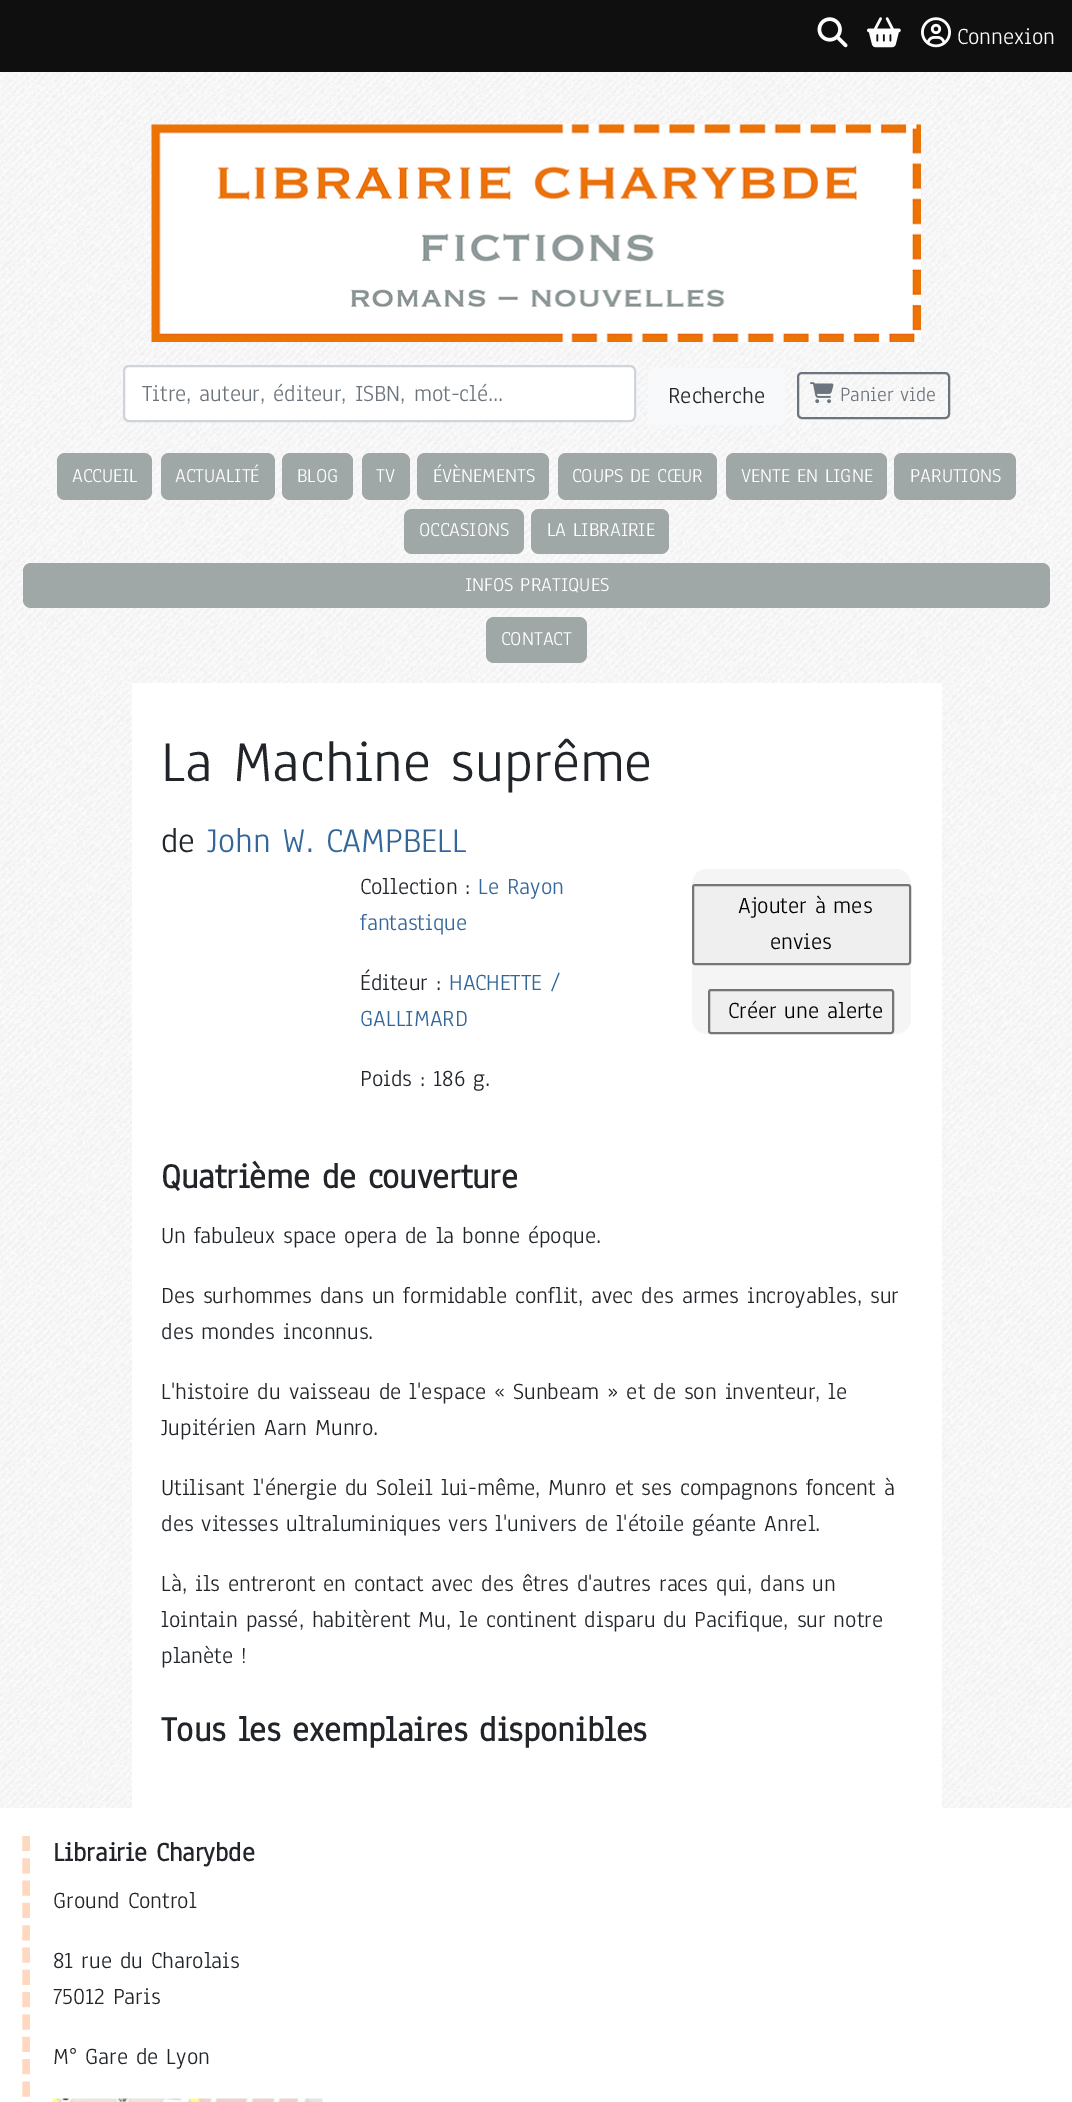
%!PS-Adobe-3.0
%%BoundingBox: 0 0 1072 2102
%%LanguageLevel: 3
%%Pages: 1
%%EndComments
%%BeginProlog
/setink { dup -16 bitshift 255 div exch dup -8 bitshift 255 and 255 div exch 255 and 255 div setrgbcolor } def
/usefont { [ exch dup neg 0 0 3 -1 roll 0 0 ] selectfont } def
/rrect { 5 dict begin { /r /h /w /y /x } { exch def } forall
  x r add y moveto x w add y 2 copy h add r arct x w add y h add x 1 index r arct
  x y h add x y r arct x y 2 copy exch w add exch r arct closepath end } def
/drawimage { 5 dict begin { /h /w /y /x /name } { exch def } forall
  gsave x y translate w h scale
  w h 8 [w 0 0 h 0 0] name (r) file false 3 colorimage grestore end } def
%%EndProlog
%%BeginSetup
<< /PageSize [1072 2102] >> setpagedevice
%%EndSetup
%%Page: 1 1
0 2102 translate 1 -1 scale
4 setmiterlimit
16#FFFFFF setink
0 0 1072 2102 rectfill
(img1.raw) 0 72 1072 1736 drawimage
16#0F0F0F setink
0 0 1072 72 rectfill
(img2.raw) 817 17 31 31 drawimage
(img3.raw) 867 17 34 31 drawimage
(img4.raw) 921 17 30 31 drawimage
/Anaheim-Regular 24 usefont
16#FFFFFF setink
957 44 moveto (Connexion) show
(img5.raw) 151 124 770 218 drawimage
124 366 511 55 5 rrect gsave fill grestore
16#CED4DA setink
2 setlinewidth
stroke
16#6C757D setink
142 401 moveto (Titre, auteur, éditeur, ISBN, mot-clé...) show
16#F8F9FA setink
648 368 137 57 6 rrect fill
16#212529 setink
668 403 moveto (Recherche) show
16#6C757D setink
798 373 151 45 4 rrect stroke
(img6.raw) 810 382 24 22 drawimage
/Anaheim-Regular 21 usefont
840 401 moveto (Panier vide) show
16#A0A7A7 setink
57 453 95 47 8 rrect fill
/Anaheim-Regular 20.5 usefont
16#FFFFFF setink
72 482 moveto (ACCUEIL) show
16#A0A7A7 setink
161 453 114 47 8 rrect fill
16#FFFFFF setink
175 482 moveto (ACTUALITÉ) show
16#A0A7A7 setink
282 453 71 47 8 rrect fill
16#FFFFFF setink
297 482 moveto (BLOG) show
16#A0A7A7 setink
362 453 48 47 8 rrect fill
16#FFFFFF setink
376 482 moveto (TV) show
16#A0A7A7 setink
417 453 132 47 8 rrect fill
16#FFFFFF setink
433 482 moveto (ÉVÈNEMENTS) show
16#A0A7A7 setink
558 453 159 47 8 rrect fill
16#FFFFFF setink
572 482 moveto (COUPS DE CŒUR) show
16#A0A7A7 setink
726 453 161 47 8 rrect fill
16#FFFFFF setink
741 482 moveto (VENTE EN LIGNE) show
16#A0A7A7 setink
894 453 122 47 8 rrect fill
16#FFFFFF setink
910 482 moveto (PARUTIONS) show
16#A0A7A7 setink
404 509 120 45 8 rrect fill
16#FFFFFF setink
419 536 moveto (OCCASIONS) show
16#A0A7A7 setink
531 509 138 45 8 rrect fill
16#FFFFFF setink
547 536 moveto (LA LIBRAIRIE) show
16#A0A7A7 setink
23 563 1027 45 8 rrect fill
16#FFFFFF setink
465 591 moveto (INFOS PRATIQUES) show
16#A0A7A7 setink
486 617 101 46 8 rrect fill
16#FFFFFF setink
501 645 moveto (CONTACT) show
132 683 810 1125 rectfill
/Anaheim-Regular 60 usefont
16#212529 setink
161 781 moveto (La Machine suprême) show
/Anaheim-Regular 36 usefont
161 852 moveto (de) show
16#336699 setink
207 852 moveto (John W. CAMPBELL) show
/Anaheim-Regular 24 usefont
16#212529 setink
360 894 moveto (Collection :) show
16#336699 setink
478 894 moveto (Le Rayon) show
360 930 moveto (fantastique) show
16#212529 setink
360 990 moveto (Éditeur :) show
16#336699 setink
449 990 moveto (HACHETTE /) show
360 1026 moveto (GALLIMARD) show
16#212529 setink
360 1086 moveto (Poids : 186 g.) show
16#F5F5F5 setink
692 869 219 165 15 rrect fill
16#EFEFEF setink
693 885 217 79 2 rrect gsave fill grestore
16#767676 setink
stroke
16#000000 setink
738 913 moveto (Ajouter à mes) show
770 949 moveto (envies) show
16#EFEFEF setink
709 990 184 43 2 rrect gsave fill grestore
16#767676 setink
stroke
16#000000 setink
728 1018 moveto (Créer une alerte) show
/Anaheim-Bold 36 usefont
16#212529 setink
161 1188 moveto (Quatrième de couverture) show
/Anaheim-Regular 24 usefont
[
    [(Un fabuleux space opera de la bonne époque.) 161 1243]
    [(Des surhommes dans un formidable conflit, avec des armes incroyables, sur) 161 1303]
    [(des mondes inconnus.) 161 1339]
    [(L'histoire du vaisseau de l'espace « Sunbeam » et de son inventeur, le) 161 1399]
    [(Jupitérien Aarn Munro.) 161 1435]
    [(Utilisant l'énergie du Soleil lui-même, Munro et ses compagnons foncent à) 161 1495]
    [(des vitesses ultraluminiques vers l'univers de l'étoile géante Anrel.) 161 1531]
    [(Là, ils entreront en contact avec des êtres d'autres races qui, dans un) 161 1591]
    [(lointain passé, habitèrent Mu, le continent disparu du Pacifique, sur notre) 161 1627]
    [(planète !) 161 1663]
] { aload pop moveto show } forall
/Anaheim-Bold 36 usefont
161 1741 moveto (Tous les exemplaires disponibles) show
16#FFD9BF setink
7.5 setlinewidth
[15 7.32] 0 setdash
26 1836 moveto 26 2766 lineto stroke
/Anaheim-Bold 27.5 usefont
16#212529 setink
53 1861 moveto (Librairie Charybde) show
/Anaheim-Regular 24 usefont
[
    [(Ground Control) 53 1908]
    [(81 rue du Charolais) 53 1968]
    [(75012 Paris) 53 2004]
    [(M° Gare de Lyon) 53 2064]
] { aload pop moveto show } forall
(img7.raw) 52 2098 271 4 drawimage
showpage
%%EOF
